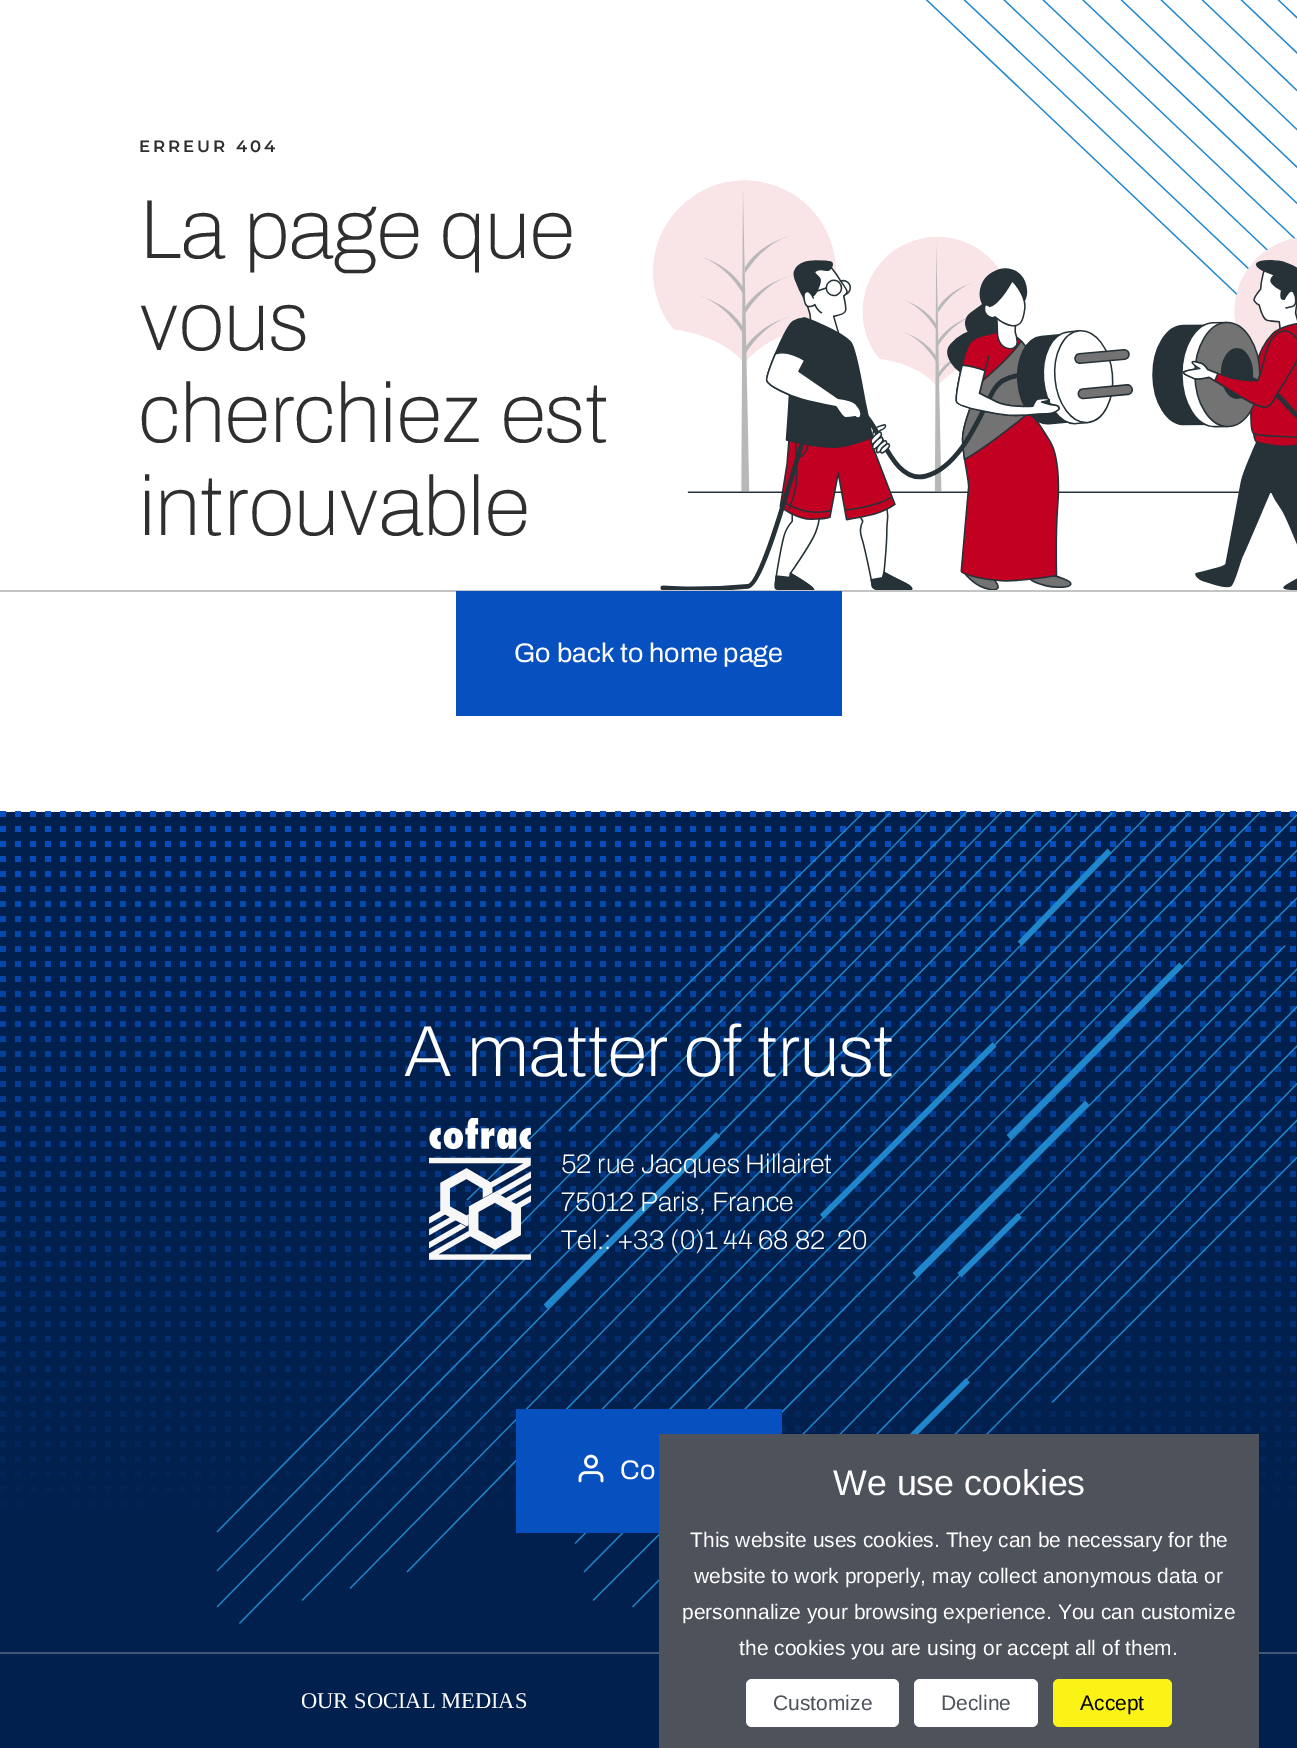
%!PS-Adobe-3.0
%%BoundingBox: 0 0 1297 1748
%%LanguageLevel: 3
%%Pages: 1
%%EndComments
%%BeginProlog
/setink { dup -16 bitshift 255 div exch dup -8 bitshift 255 and 255 div exch 255 and 255 div setrgbcolor } def
/usefont { [ exch dup neg 0 0 3 -1 roll 0 0 ] selectfont } def
/rrect { 5 dict begin { /r /h /w /y /x } { exch def } forall
  x r add y moveto x w add y 2 copy h add r arct x w add y h add x 1 index r arct
  x y h add x y r arct x y 2 copy exch w add exch r arct closepath end } def
/drawimage { 5 dict begin { /h /w /y /x /name } { exch def } forall
  gsave x y translate w h scale
  w h 8 [w 0 0 h 0 0] name (r) file false 3 colorimage grestore end } def
%%EndProlog
%%BeginSetup
<< /PageSize [1297 1748] >> setpagedevice
%%EndSetup
%%Page: 1 1
0 1748 translate 1 -1 scale
4 setmiterlimit
16#FFFFFF setink
0 0 1297 1748 rectfill
(img1.raw) 653 0 644 590 drawimage
16#C4C4C4 setink
0 590 1297 2 rectfill
/Montserrat-Thin 16.5 usefont
16#2F2F2F setink
139 152 moveto 3 0 (ERREUR 404) ashow
/Archivo-Thin 84 usefont
[
    [(La page que) 139 258]
    [(vous) 139 350]
    [(cherchiez est) 139 442]
    [(introuvable) 139 535]
] { aload pop moveto show } forall
16#0650C0 setink
456 591 386 125 rectfill
/Archivo-SemiBold 27 usefont
16#FFFFFF setink
514 662 moveto (Go back to home page) show
16#02204D setink
0 812 1297 936 rectfill
(img2.raw) 0 811 1297 813 drawimage
/Archivo-ExtraLight 72 usefont
16#FFFFFF setink
404 1076 moveto (A matter of trust) show
(img3.raw) 429 1118 102 142 drawimage
/Archivo-ExtraLight 27 usefont
[
    [(52 rue Jacques Hillairet) 561 1173]
    [(75012 Paris, France) 561 1211]
    [(Tel.: +33 \(0\)1 44 68 82  20) 561 1249]
] { aload pop moveto show } forall
16#0650C0 setink
516 1409 266 124 rectfill
(img4.raw) 578 1454 26 29 drawimage
/Archivo-SemiBold 27 usefont
16#FFFFFF setink
620 1479 moveto (Co) show
16#41587A setink
0 1652 1297 2 rectfill
/LiberationSerif-Regular 22.5 usefont
16#FFFFFF setink
301 1708 moveto (OUR SOCIAL MEDIAS) show
16#4D525B setink
659 1434 600 314 rectfill
/LiberationSans-Regular 35.75 usefont
16#FFFFFF setink
833 1495 moveto (We use cookies) show
/LiberationSans-Regular 21 usefont
[
    [(This website uses cookies. They can be necessary for the) 690 1547]
    [(website to work properly, may collect anonymous data or) 694 1583]
    [(personnalize your browsing experience. You can customize) 682 1619]
    [(the cookies you are using or accept all of them.) 739 1655]
] { aload pop moveto show } forall
746 1679 153 48 6 rrect fill
16#4D525B setink
773 1710 moveto (Customize) show
16#FFFFFF setink
914 1679 124 48 6 rrect fill
16#4D525B setink
941 1710 moveto (Decline) show
16#FBF315 setink
1053 1679 119 48 6 rrect fill
16#000000 setink
1080 1710 moveto (Accept) show
showpage
%%EOF
